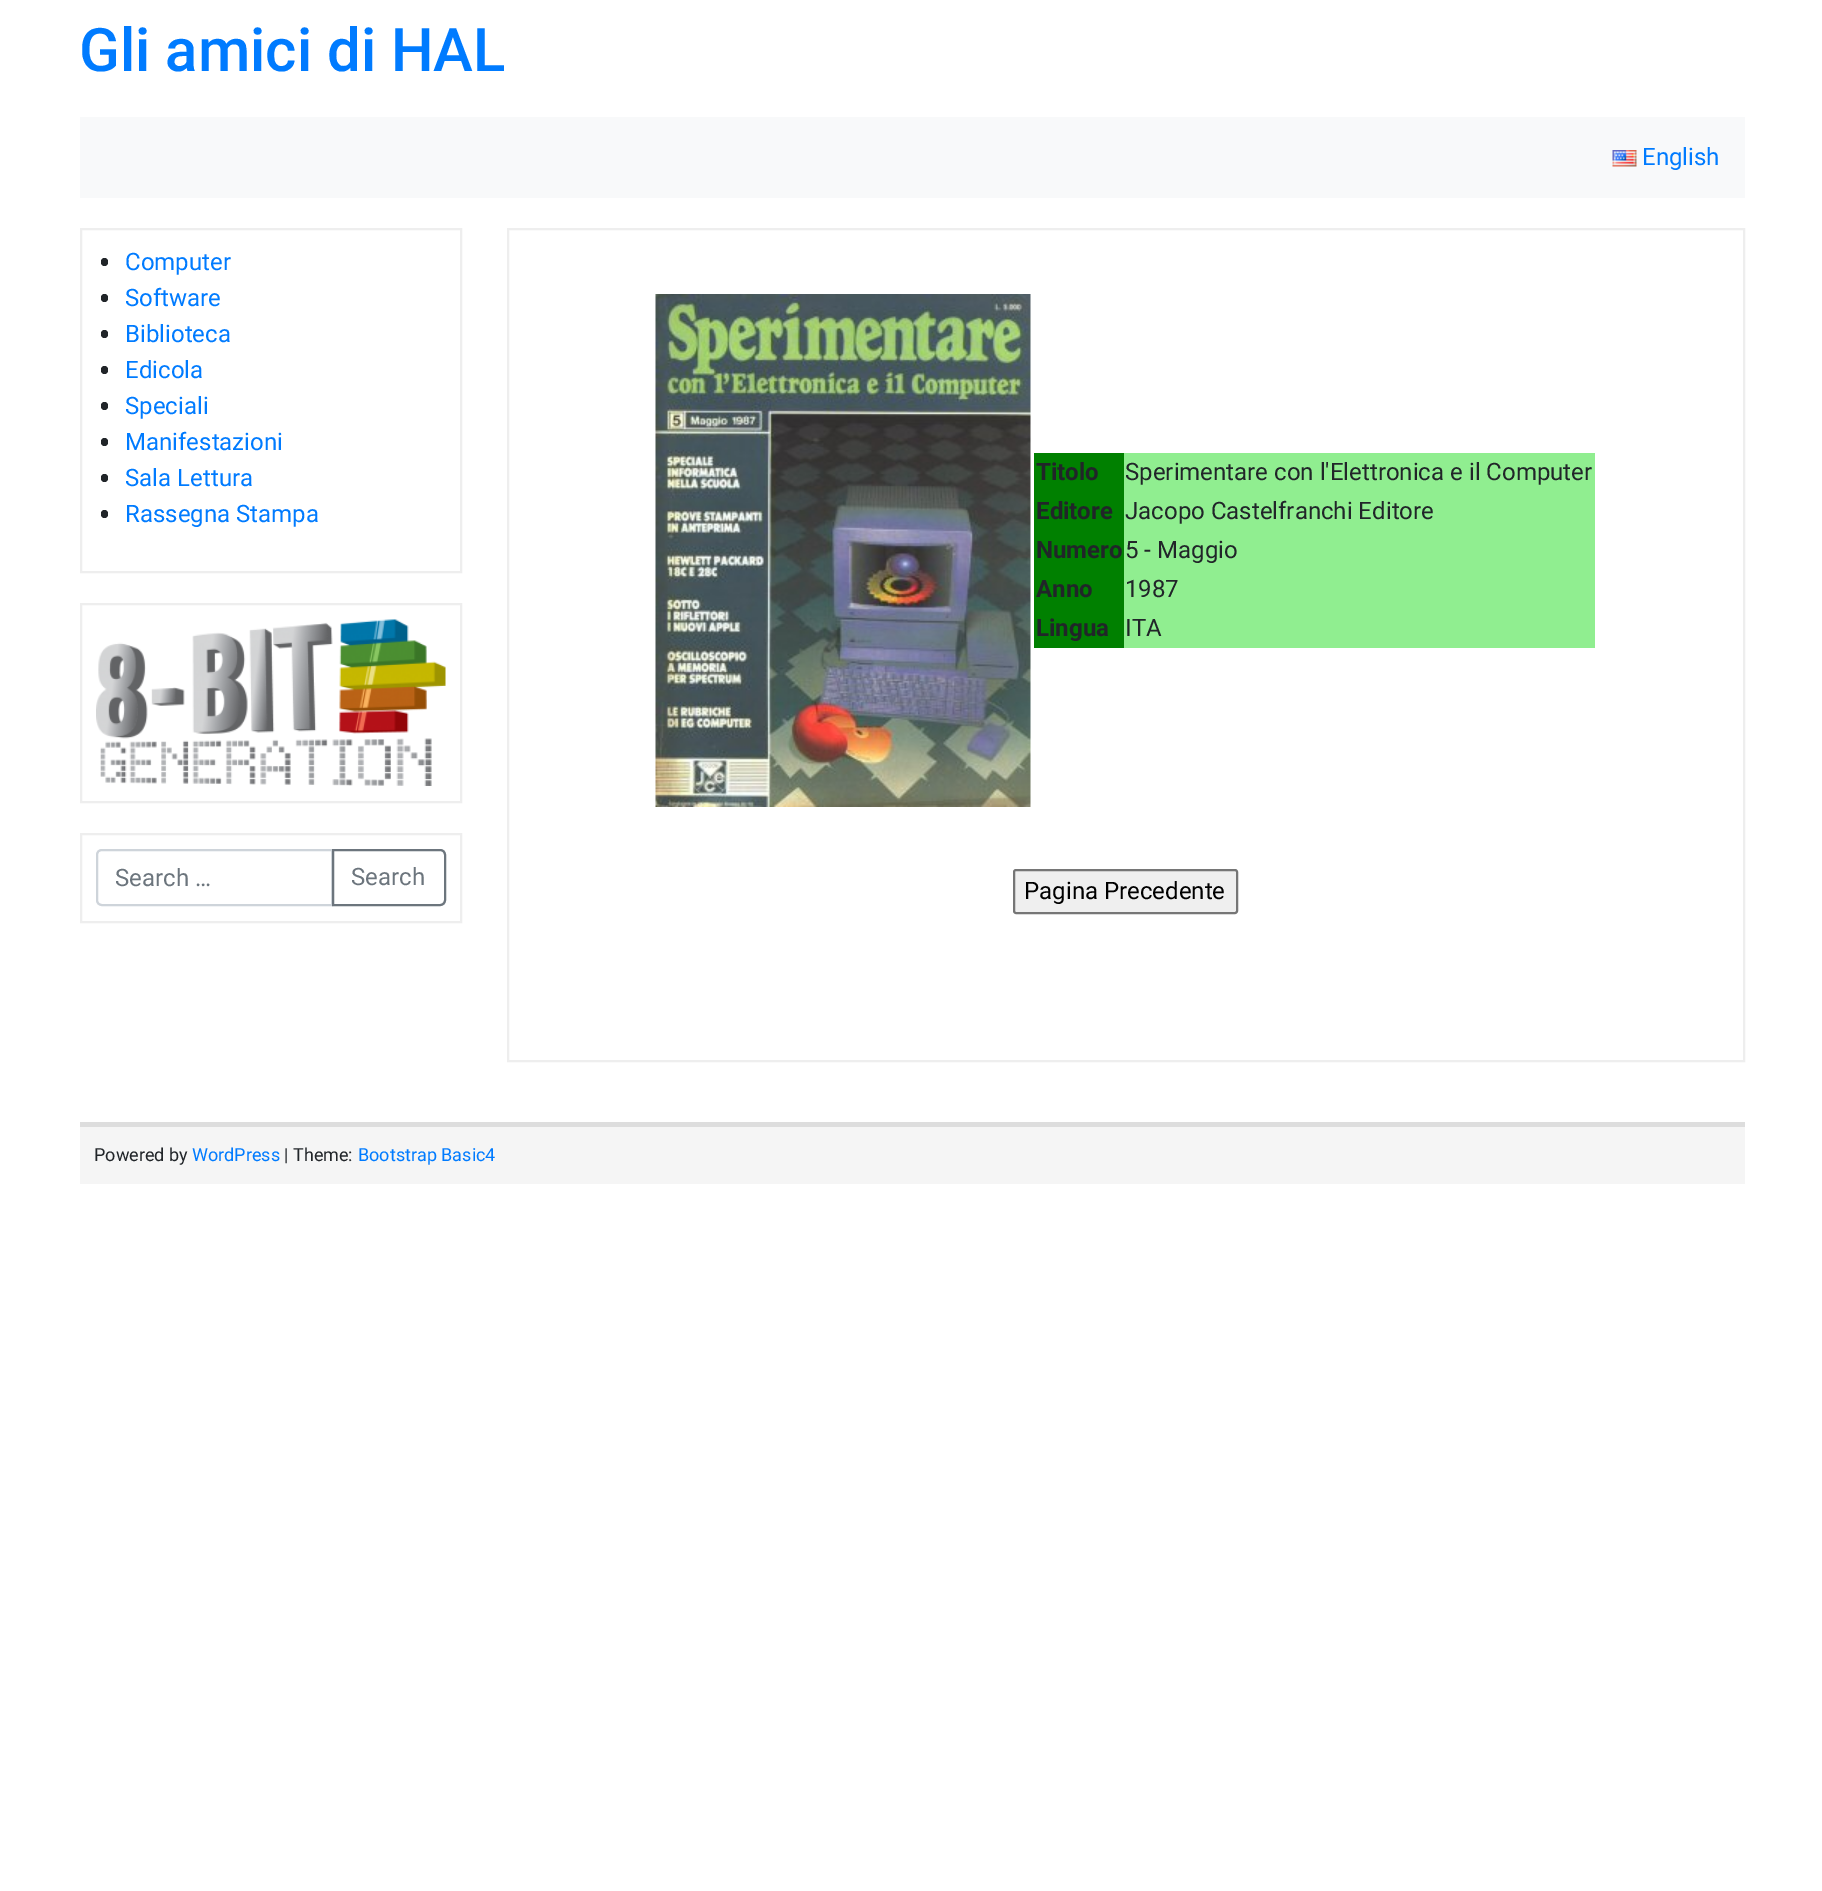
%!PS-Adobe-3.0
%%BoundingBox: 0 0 1822 1891
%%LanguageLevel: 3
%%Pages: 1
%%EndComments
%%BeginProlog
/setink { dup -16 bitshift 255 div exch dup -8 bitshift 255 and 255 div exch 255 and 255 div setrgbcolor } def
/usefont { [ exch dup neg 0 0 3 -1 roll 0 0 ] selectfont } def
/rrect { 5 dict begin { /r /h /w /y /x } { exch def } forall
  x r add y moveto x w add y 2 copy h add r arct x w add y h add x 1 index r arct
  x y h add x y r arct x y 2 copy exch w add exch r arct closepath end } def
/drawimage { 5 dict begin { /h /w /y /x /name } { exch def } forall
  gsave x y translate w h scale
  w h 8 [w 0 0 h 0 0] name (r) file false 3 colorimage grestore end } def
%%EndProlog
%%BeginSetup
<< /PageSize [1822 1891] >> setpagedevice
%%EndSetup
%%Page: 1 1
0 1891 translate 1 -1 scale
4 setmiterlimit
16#FFFFFF setink
0 0 1822 1891 rectfill
/Roboto-Medium 60 usefont
16#007BFF setink
79 71 moveto (Gli amici di HAL) show
16#F8F9FA setink
80 117 1665 81 rectfill
(img1.raw) 1612 150 25 17 drawimage
/Roboto-Regular 24 usefont
16#007BFF setink
1642 165 moveto (English) show
16#EEEEEE setink
2 setlinewidth
81 229 380 343 rectstroke
16#212529 setink
101 258 7 8 3.5 rrect fill
16#007BFF setink
125 270 moveto (Computer) show
16#212529 setink
101 294 7 8 3.5 rrect fill
16#007BFF setink
125 306 moveto (Software) show
16#212529 setink
101 330 7 8 3.5 rrect fill
16#007BFF setink
125 342 moveto (Biblioteca) show
16#212529 setink
101 366 7 8 3.5 rrect fill
16#007BFF setink
125 378 moveto (Edicola) show
16#212529 setink
101 402 7 8 3.5 rrect fill
16#007BFF setink
125 414 moveto (Speciali) show
16#212529 setink
101 438 7 8 3.5 rrect fill
16#007BFF setink
125 450 moveto (Manifestazioni) show
16#212529 setink
101 474 7 8 3.5 rrect fill
16#007BFF setink
125 486 moveto (Sala Lettura) show
16#212529 setink
101 510 7 8 3.5 rrect fill
16#007BFF setink
125 522 moveto (Rassegna Stampa) show
16#EEEEEE setink
81 604 380 198 rectstroke
(img2.raw) 96 619 350 167 drawimage
81 834 380 88 rectstroke
16#CED4DA setink
102 850 moveto 332 850 lineto 332 905 lineto 102 905 lineto 99 905 97 903 97 900 curveto 97 855 lineto 97 852 99 850 102 850 curveto closepath stroke
16#6C757D setink
115 886 moveto (Search …) show
333 850 moveto 440 850 lineto 443 850 445 852 445 855 curveto 445 900 lineto 445 903 443 905 440 905 curveto 333 905 lineto closepath stroke
351 885 moveto (Search) show
16#EEEEEE setink
508 229 1236 832 rectstroke
(img3.raw) 655 294 376 513 drawimage
16#008000 setink
1034 453 90 195 rectfill
/Roboto-Bold 24 usefont
16#212529 setink
1036 480 moveto (Titolo) show
16#90EE90 setink
1124 453 471 195 rectfill
/Roboto-Regular 24 usefont
16#212529 setink
1125 480 moveto (Sperimentare con l'Elettronica e il Computer) show
/Roboto-Bold 24 usefont
1036 519 moveto (Editore) show
/Roboto-Regular 24 usefont
1125 519 moveto (Jacopo Castelfranchi Editore) show
/Roboto-Bold 24 usefont
1036 558 moveto (Numero) show
/Roboto-Regular 24 usefont
1125 558 moveto (5 - Maggio) show
/Roboto-Bold 24 usefont
1036 597 moveto (Anno) show
/Roboto-Regular 24 usefont
1125 597 moveto (1987) show
/Roboto-Bold 24 usefont
1036 636 moveto (Lingua) show
/Roboto-Regular 24 usefont
1125 636 moveto (ITA) show
16#EFEFEF setink
1014 870 223 43 2 rrect gsave fill grestore
16#767676 setink
stroke
16#000000 setink
1024 899 moveto (Pagina Precedente) show
16#F5F5F5 setink
80 1127 1665 57 rectfill
16#DDDDDD setink
80 1122 1665 5 rectfill
/Roboto-Regular 18 usefont
16#212529 setink
94 1161 moveto (Powered by) show
16#007BFF setink
192 1161 moveto (WordPress) show
16#212529 setink
284 1161 moveto (| Theme:) show
16#007BFF setink
358 1161 moveto (Bootstrap Basic4) show
showpage
%%EOF
